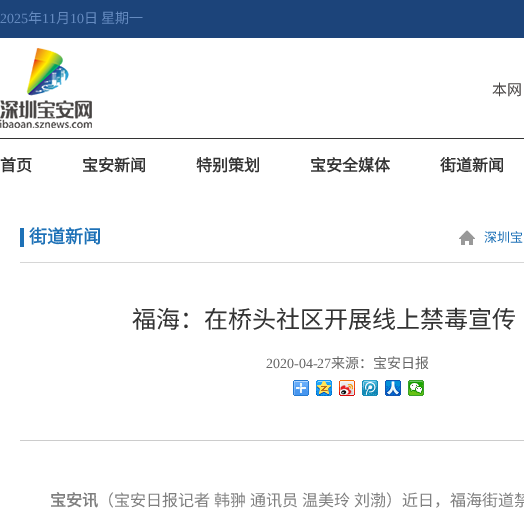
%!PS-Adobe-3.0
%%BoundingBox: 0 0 524 532
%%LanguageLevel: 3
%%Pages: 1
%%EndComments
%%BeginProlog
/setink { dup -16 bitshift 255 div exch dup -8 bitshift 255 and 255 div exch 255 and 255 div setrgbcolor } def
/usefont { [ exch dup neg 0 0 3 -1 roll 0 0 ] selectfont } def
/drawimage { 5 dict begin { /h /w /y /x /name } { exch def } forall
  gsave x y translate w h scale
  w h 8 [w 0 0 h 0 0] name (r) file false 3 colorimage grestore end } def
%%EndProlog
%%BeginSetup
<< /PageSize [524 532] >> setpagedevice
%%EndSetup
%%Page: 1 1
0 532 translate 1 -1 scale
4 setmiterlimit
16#FFFFFF setink
0 0 524 532 rectfill
16#1C447A setink
0 0 524 38 rectfill
/LiberationSerif-Regular 14 usefont
16#658BC0 setink
0 23 moveto (2025) show
/NotoSansCJKSC-Regular 14 usefont
28 23 moveto (年) show
/LiberationSerif-Regular 14 usefont
42 23 moveto (11) show
/NotoSansCJKSC-Regular 14 usefont
56 23 moveto (月) show
/LiberationSerif-Regular 14 usefont
70 23 moveto (10) show
/NotoSansCJKSC-Regular 14 usefont
84 23 moveto (日) show
101 23 moveto (星期一) show
16#333333 setink
0 138 524 1 rectfill
(img1.raw) 0 48 92 80 drawimage
/NotoSansCJKSC-Regular 15 usefont
16#464342 setink
492 95 moveto (本网) show
/NotoSansCJKSC-Bold 16 usefont
16#333333 setink
[
    [(首页) 0 171]
    [(宝安新闻) 82 171]
    [(特别策划) 196 171]
    [(宝安全媒体) 310 171]
    [(街道新闻) 440 171]
] { aload pop moveto show } forall
16#D6D6D6 setink
20 262 504 1 rectfill
16#1D71B7 setink
20 228 4 19 rectfill
/NotoSansCJKSC-Bold 18 usefont
29 243 moveto (街道新闻) show
(img2.raw) 459 230 16 15 drawimage
/NotoSansCJKSC-Regular 13 usefont
484 242 moveto (深圳宝) show
/NotoSansCJKSC-Regular 24 usefont
16#333333 setink
132 328 moveto (福海：在桥头社区开展线上禁毒宣传) show
16#CCCCCC setink
20 440 504 1 rectfill
/LiberationSerif-Regular 14 usefont
16#666666 setink
266 368 moveto (2020-04-27) show
/NotoSansCJKSC-Regular 14 usefont
331 368 moveto (来源：宝安日报) show
(img3.raw) 293 380 16 16 drawimage
(img4.raw) 316 380 16 16 drawimage
(img5.raw) 339 380 16 16 drawimage
(img6.raw) 362 380 16 16 drawimage
(img7.raw) 385 380 16 16 drawimage
(img8.raw) 408 380 16 16 drawimage
/NotoSansCJKSC-Bold 16 usefont
16#7F7F7F setink
50 506 moveto (宝安讯) show
/NotoSansCJKSC-Regular 16 usefont
98 506 moveto (（宝安日报) show
178 506 moveto 0.5 0 32 (记者 韩翀 通讯员 温美玲 刘渤）近日，福海街道禁) widthshow
showpage
%%EOF
